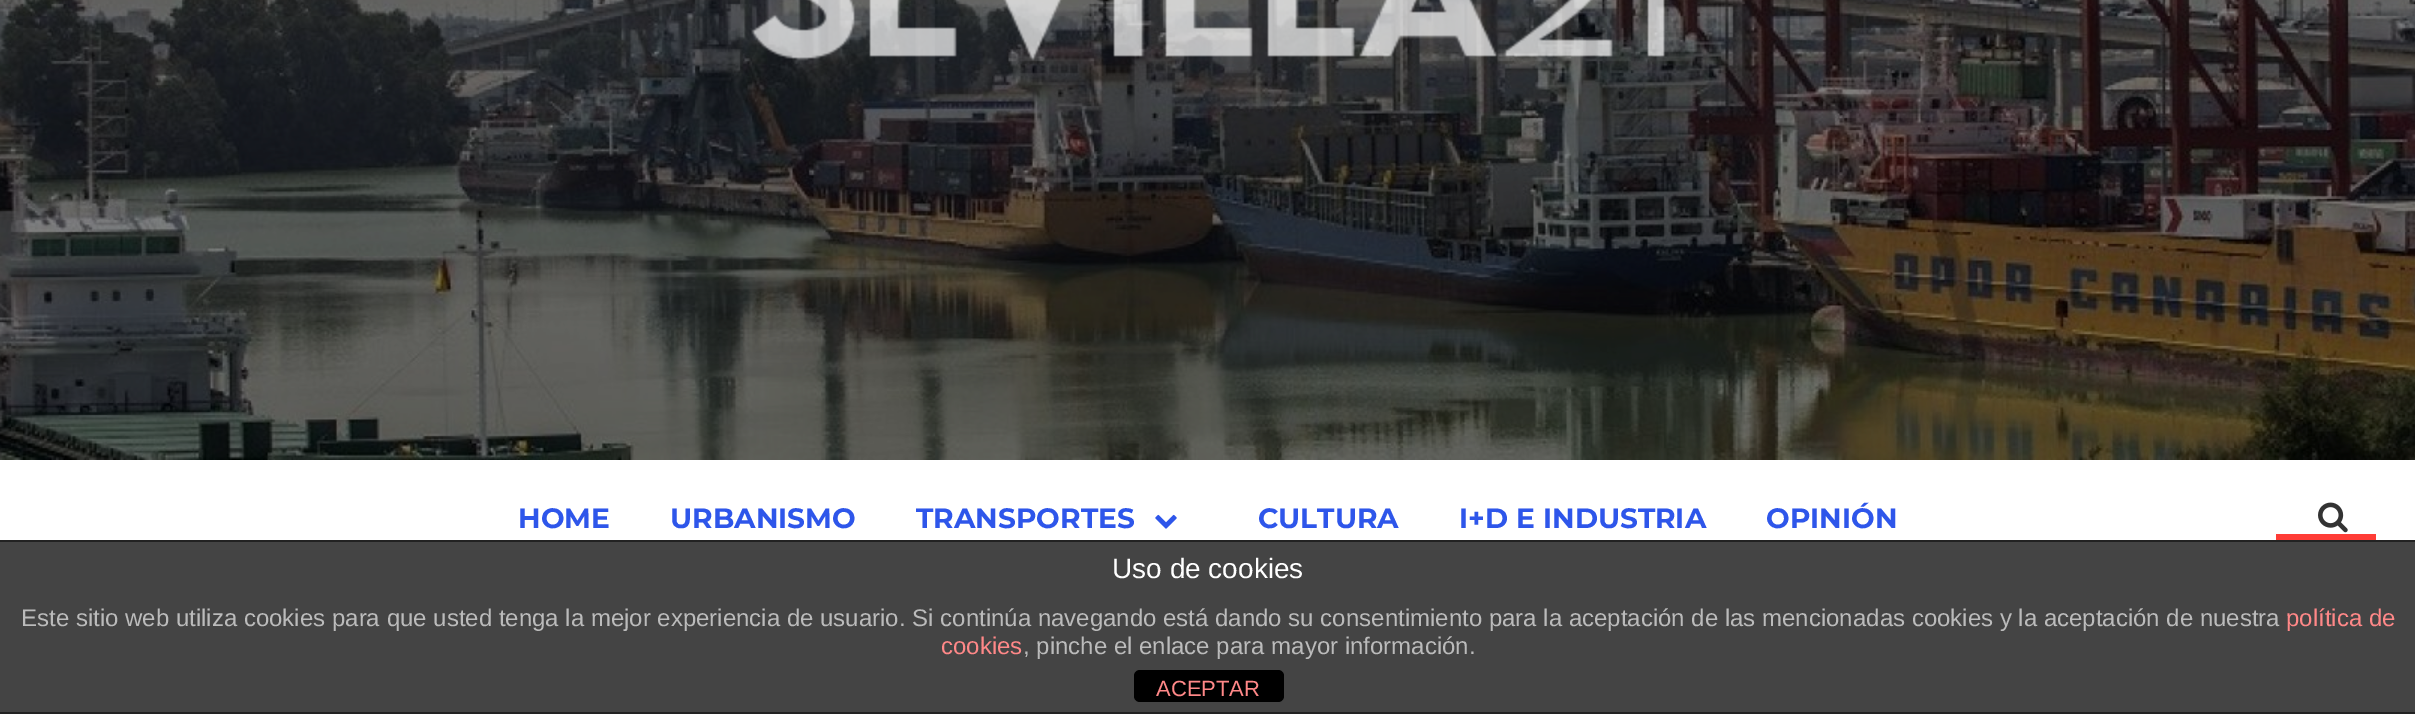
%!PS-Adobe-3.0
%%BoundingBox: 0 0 2415 714
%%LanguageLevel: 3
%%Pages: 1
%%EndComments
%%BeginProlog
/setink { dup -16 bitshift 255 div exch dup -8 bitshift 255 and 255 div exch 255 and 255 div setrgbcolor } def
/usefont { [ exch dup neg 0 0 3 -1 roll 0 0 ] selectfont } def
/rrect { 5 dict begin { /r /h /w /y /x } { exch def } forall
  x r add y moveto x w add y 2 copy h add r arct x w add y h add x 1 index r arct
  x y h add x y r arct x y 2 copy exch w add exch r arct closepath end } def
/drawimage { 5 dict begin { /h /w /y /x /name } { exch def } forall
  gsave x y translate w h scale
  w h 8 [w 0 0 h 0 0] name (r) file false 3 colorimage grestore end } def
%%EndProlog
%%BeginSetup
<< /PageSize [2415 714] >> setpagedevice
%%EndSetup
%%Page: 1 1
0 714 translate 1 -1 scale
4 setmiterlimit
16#FFFFFF setink
0 0 2415 714 rectfill
(img1.raw) 0 0 2415 460 drawimage
(img2.raw) 751 0 914 61 drawimage
/Montserrat-Bold 28 usefont
16#2E56EA setink
[
    [(HOME) 518 528]
    [(URBANISMO) 670 528]
    [(TRANSPORTES) 916 528]
] { aload pop moveto show } forall
(img3.raw) 1155 514 22 15 drawimage
[
    [(CULTURA) 1258 528]
    [(I+D E INDUSTRIA) 1459 528]
    [(OPINIÓN) 1766 528]
] { aload pop moveto show } forall
(img4.raw) 2318 502 30 31 drawimage
[
    [2276 534 100 6 16#FF3C36]
    [0 542 2415 170 16#444444]
    [0 540 2415 2 16#222222]
    [0 712 2415 2 16#222222]
] { aload pop setink rectfill } forall
/LiberationSans-Regular 28 usefont
16#FFFFFF setink
1112 578 moveto (Uso de cookies) show
/LiberationSans-Regular 24 usefont
16#BBBBBB setink
21 626 moveto (Este sitio web utiliza cookies para que usted tenga la mejor experiencia de usuario. Si continúa navegando está dando su consentimiento para la aceptación de las mencionadas cookies y la aceptación de nuestra) show
16#FF8888 setink
2286 626 moveto (política de) show
941 654 moveto (cookies) show
16#BBBBBB setink
1023 654 moveto (, pinche el enlace para mayor información.) show
16#000000 setink
1134 670 150 32 6 rrect fill
/LiberationSans-Regular 22 usefont
16#FF8888 setink
1156 696 moveto (ACEPTAR) show
showpage
%%EOF
